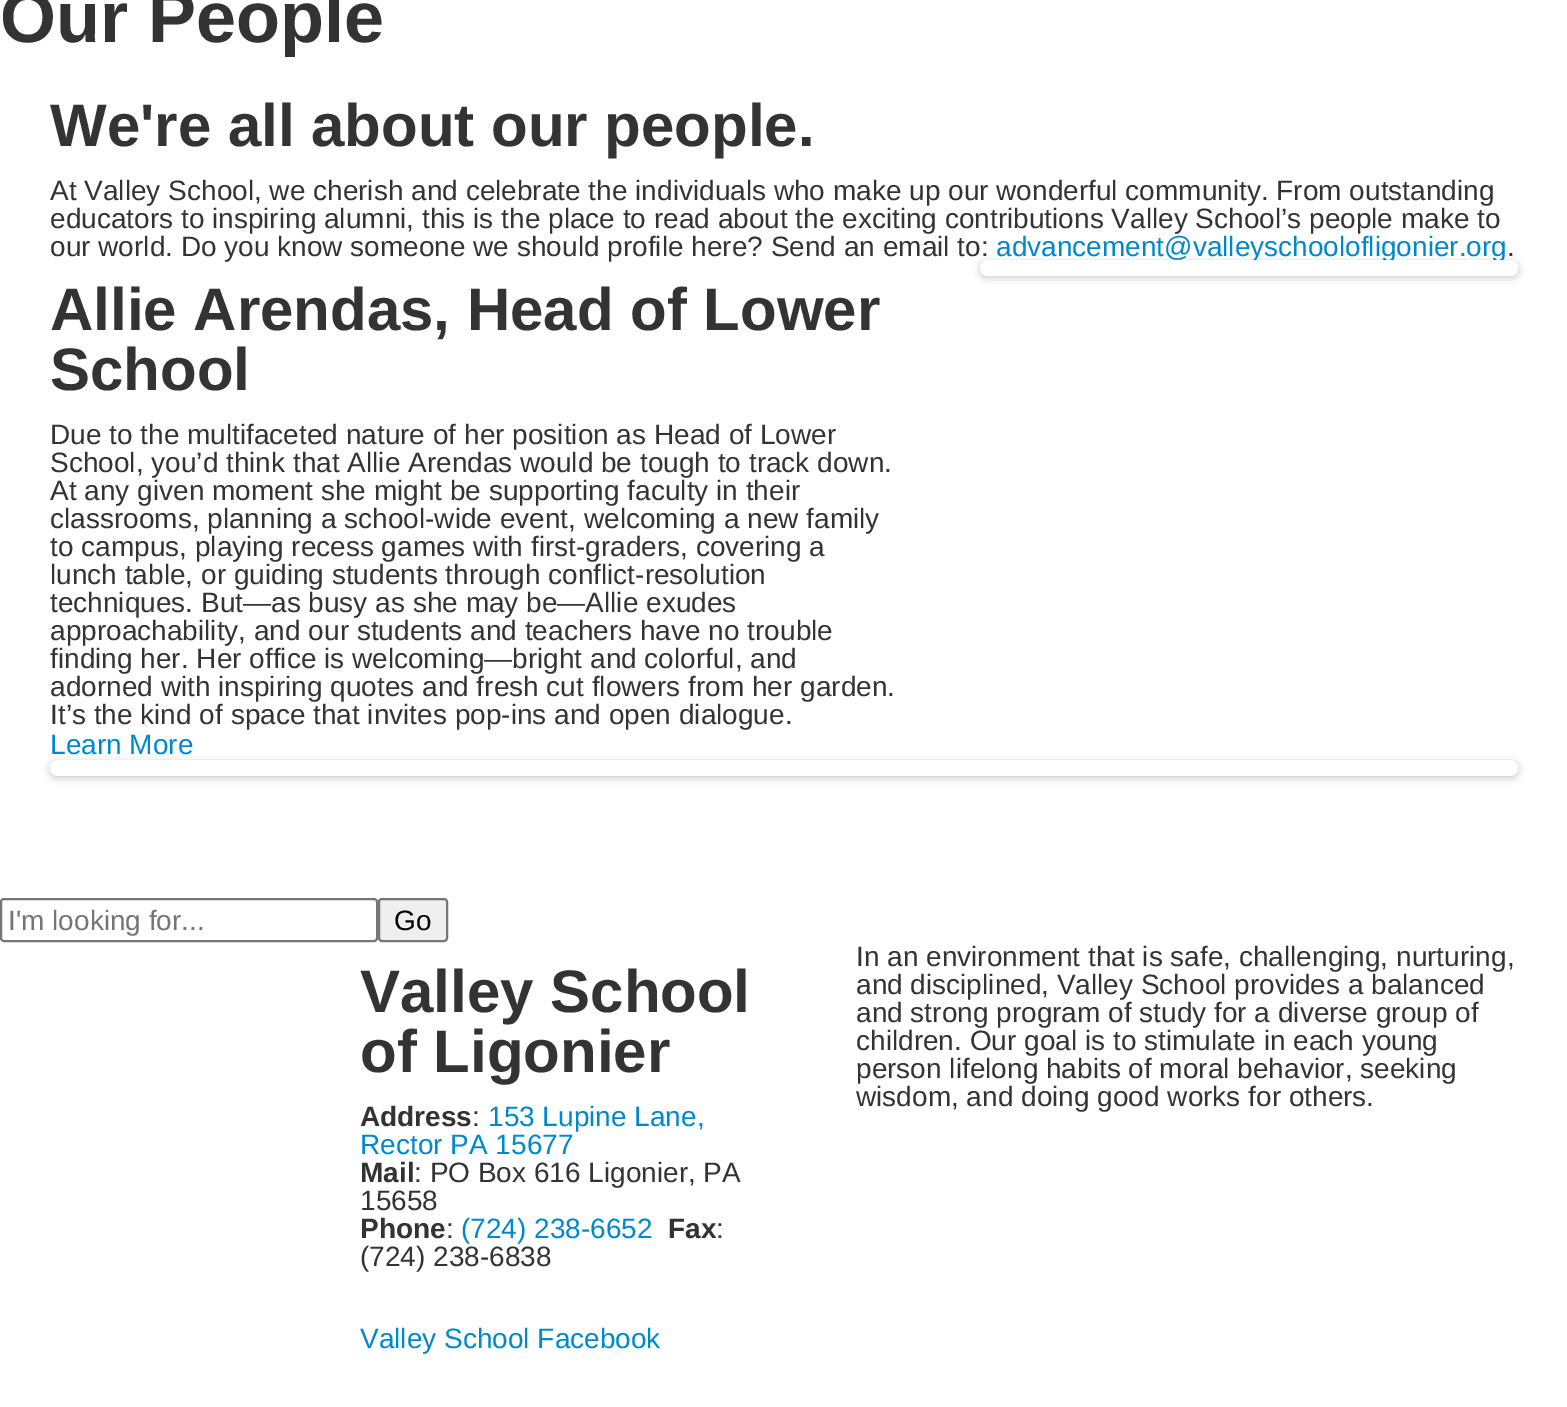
%!PS-Adobe-3.0
%%BoundingBox: 0 0 1567 1407
%%LanguageLevel: 3
%%Pages: 1
%%EndComments
%%BeginProlog
/setink { dup -16 bitshift 255 div exch dup -8 bitshift 255 and 255 div exch 255 and 255 div setrgbcolor } def
/usefont { [ exch dup neg 0 0 3 -1 roll 0 0 ] selectfont } def
/setalpha { dup .setfillconstantalpha .setstrokeconstantalpha } def
/rrect { 5 dict begin { /r /h /w /y /x } { exch def } forall
  x r add y moveto x w add y 2 copy h add r arct x w add y h add x 1 index r arct
  x y h add x y r arct x y 2 copy exch w add exch r arct closepath end } def
/softshadow { 12 dict begin { /a /b /q /h /w /y /x } { exch def } forall gsave /was 0 def
  9 -2 -9 { dup b mul 4 div /e exch def 1 sub .425 mul 2.718 exch exp 1 add a .99 .min exch div /now exch def
    1 1 now sub 1 was sub div sub setalpha /was now def
    w h .min e 2 mul add 0 gt { x e sub y e sub w e 2 mul add h e 2 mul add
      q e add b .6 mul add w h .min 2 div e add .min 0 .max rrect fill } if } for grestore end } def
%%EndProlog
%%BeginSetup
<< /PageSize [1567 1407] /PageUsesTransparency true >> setpagedevice
%%EndSetup
%%Page: 1 1
0 .pushpdf14devicefilter
0 1407 translate 1 -1 scale
4 setmiterlimit
16#FFFFFF setink
0 0 1567 1407 rectfill
/LiberationSans-Bold 72 usefont
16#333333 setink
0 42 moveto (Our People) show
/LiberationSans-Bold 60 usefont
50 146 moveto (We're all about our people.) show
/LiberationSans-Regular 28 usefont
[
    [(At Valley School, we cherish and celebrate the individuals who make up our wonderful community. From outstanding) 50 200]
    [(educators to inspiring alumni, this is the place to read about the exciting contributions Valley School’s people make to) 50 228]
    [(our world. Do you know someone we should profile here? Send an email to:) 50 256]
] { aload pop moveto show } forall
16#0088CC setink
996 256 moveto (advancement@valleyschoolofligonier.org) show
16#333333 setink
1507 256 moveto (.) show
16#000000 setink
980 262 538 16 8 4 0.2 softshadow
16#FFFFFF setink
980 260 538 16 8 rrect fill
/LiberationSans-Bold 60 usefont
16#333333 setink
50 330 moveto (Allie Arendas, Head of Lower) show
50 390 moveto (School) show
/LiberationSans-Regular 28 usefont
[
    [(Due to the multifaceted nature of her position as Head of Lower) 50 444]
    [(School, you’d think that Allie Arendas would be tough to track down.) 50 472]
    [(At any given moment she might be supporting faculty in their) 50 500]
    [(classrooms, planning a school-wide event, welcoming a new family) 50 528]
    [(to campus, playing recess games with first-graders, covering a) 50 556]
    [(lunch table, or guiding students through conflict-resolution) 50 584]
    [(techniques. But—as busy as she may be—Allie exudes) 50 612]
    [(approachability, and our students and teachers have no trouble) 50 640]
    [(finding her. Her office is welcoming—bright and colorful, and) 50 668]
    [(adorned with inspiring quotes and fresh cut flowers from her garden.) 50 696]
    [(It’s the kind of space that invites pop-ins and open dialogue.) 50 724]
] { aload pop moveto show } forall
16#0088CC setink
50 754 moveto (Learn More) show
16#000000 setink
50 762 1468 16 8 4 0.2 softshadow
16#FFFFFF setink
50 760 1468 16 8 rrect fill
16#767676 setink
2 setlinewidth
1 899 376 42 3 rrect stroke
16#757575 setink
8 930 moveto (I'm looking for...) show
16#EFEFEF setink
379 899 68 42 3 rrect gsave fill grestore
16#767676 setink
stroke
16#000000 setink
394 930 moveto (Go) show
/LiberationSans-Bold 60 usefont
16#333333 setink
360 1012 moveto (Valley School) show
360 1072 moveto (of Ligonier) show
/LiberationSans-Bold 28 usefont
360 1126 moveto (Address) show
/LiberationSans-Regular 28 usefont
472 1126 moveto (:) show
16#0088CC setink
488 1126 moveto (153 Lupine Lane,) show
360 1154 moveto (Rector PA 15677) show
/LiberationSans-Bold 28 usefont
16#333333 setink
360 1182 moveto (Mail) show
/LiberationSans-Regular 28 usefont
414 1182 moveto (: PO Box 616 Ligonier, PA) show
360 1210 moveto (15658) show
/LiberationSans-Bold 28 usefont
360 1238 moveto (Phone) show
/LiberationSans-Regular 28 usefont
446 1238 moveto (:) show
16#0088CC setink
461 1238 moveto (\(724\) 238-6652) show
/LiberationSans-Bold 28 usefont
16#333333 setink
668 1238 moveto (Fax) show
/LiberationSans-Regular 28 usefont
716 1238 moveto (:) show
360 1266 moveto (\(724\) 238-6838) show
16#0088CC setink
360 1348 moveto (Valley School Facebook) show
16#333333 setink
[
    [(In an environment that is safe, challenging, nurturing,) 856 966]
    [(and disciplined, Valley School provides a balanced) 856 994]
    [(and strong program of study for a diverse group of) 856 1022]
    [(children. Our goal is to stimulate in each young) 856 1050]
    [(person lifelong habits of moral behavior, seeking) 856 1078]
    [(wisdom, and doing good works for others.) 856 1106]
] { aload pop moveto show } forall
.poppdf14devicefilter showpage
%%EOF
